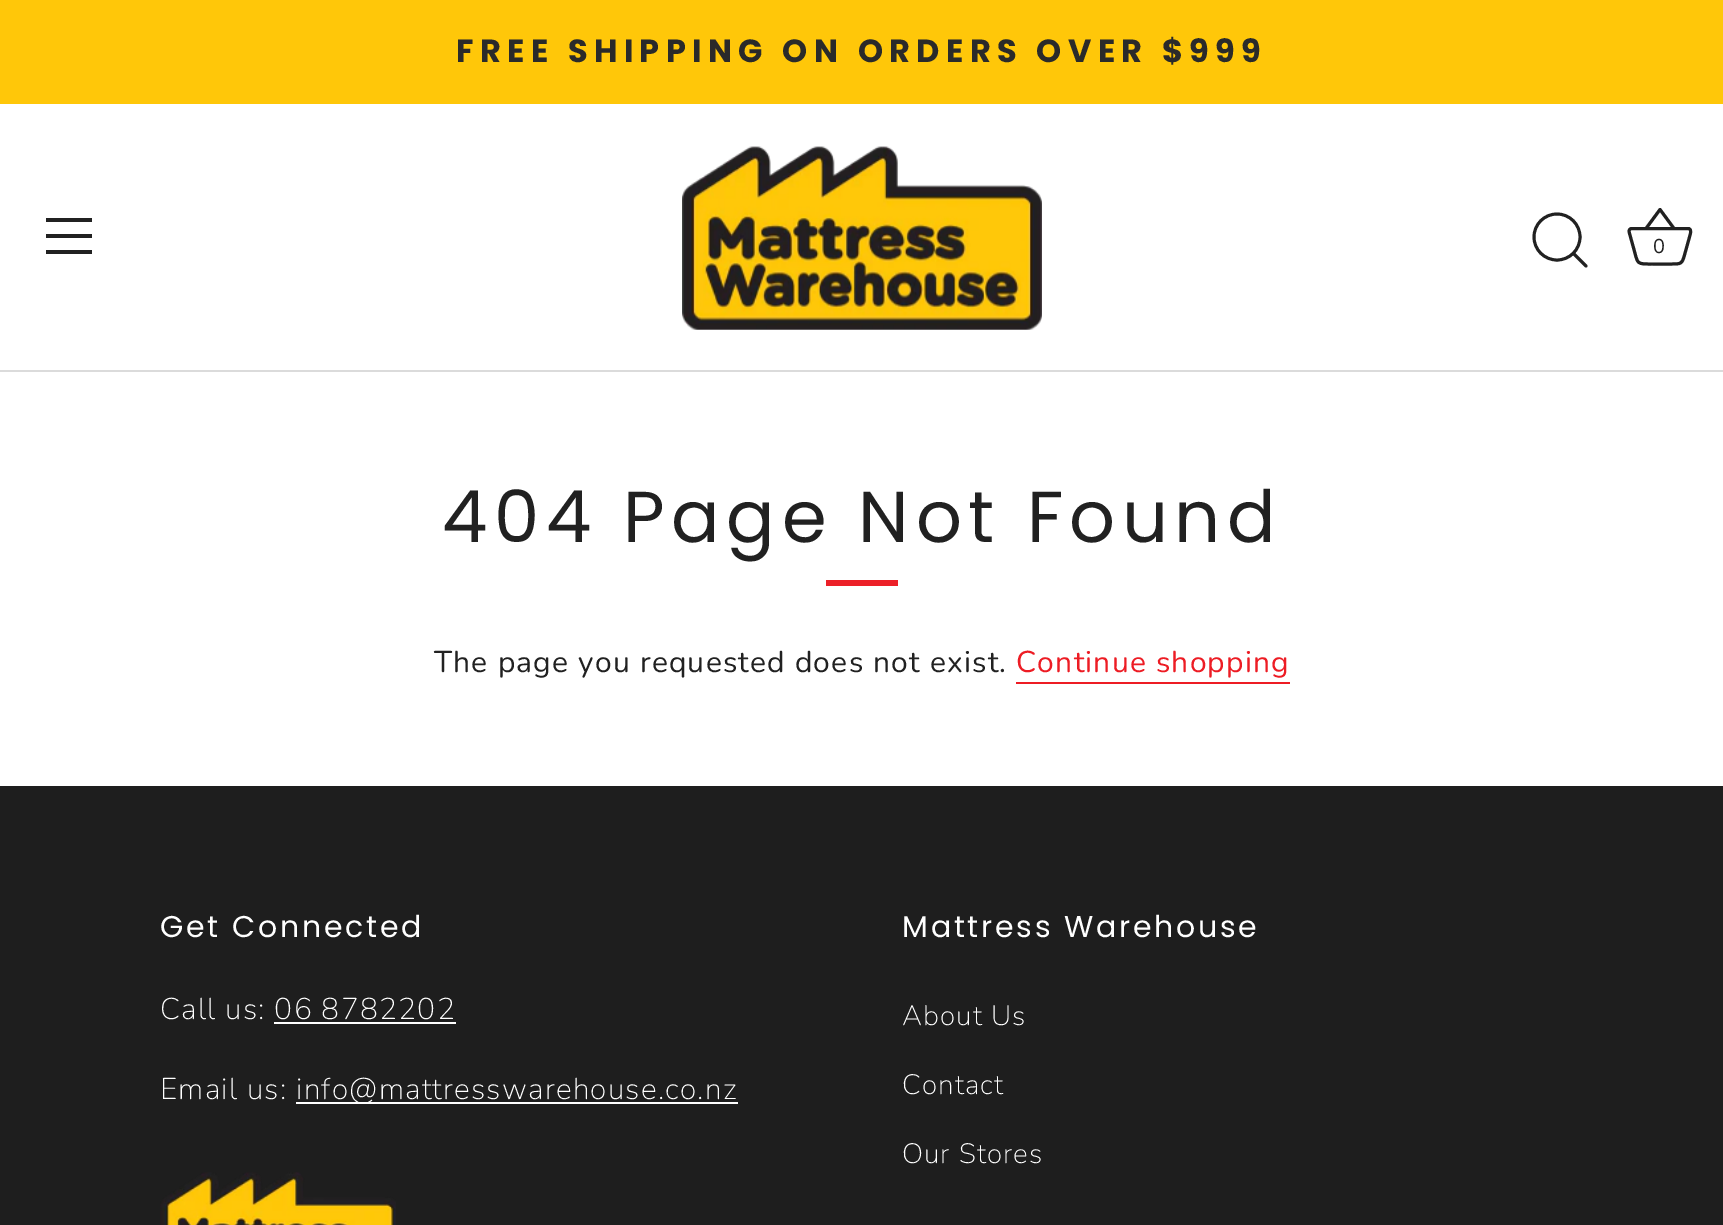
%!PS-Adobe-3.0
%%BoundingBox: 0 0 1723 1225
%%LanguageLevel: 3
%%Pages: 1
%%EndComments
%%BeginProlog
/setink { dup -16 bitshift 255 div exch dup -8 bitshift 255 and 255 div exch 255 and 255 div setrgbcolor } def
/usefont { [ exch dup neg 0 0 3 -1 roll 0 0 ] selectfont } def
/disc { newpath 0 360 arc closepath } def
/drawimage { 5 dict begin { /h /w /y /x /name } { exch def } forall
  gsave x y translate w h scale
  w h 8 [w 0 0 h 0 0] name (r) file false 3 colorimage grestore end } def
%%EndProlog
%%BeginSetup
<< /PageSize [1723 1225] >> setpagedevice
%%EndSetup
%%Page: 1 1
0 1225 translate 1 -1 scale
4 setmiterlimit
16#FFFFFF setink
0 0 1723 1225 rectfill
16#DBDBDB setink
0 370 1723 2 rectfill
16#FFC709 setink
0 0 1723 104 rectfill
/Poppins-Bold 32 usefont
16#2A2A2A setink
456 62 moveto 6.4 0 (FREE SHIPPING ON ORDERS OVER $999) ashow
[
    [46 218 46 4 16#212121]
    [46 234 46 4 16#212121]
    [46 250 46 4 16#212121]
] { aload pop setink rectfill } forall
(img1.raw) 682 146 360 184 drawimage
2.9 setlinewidth
1557 237 23 disc stroke
1 setlinecap
1 setlinejoin
1586 266 moveto 1573.5 253.5 lineto stroke
3 setlinewidth
0 setlinecap
1632 228.5 moveto 1627 228.5 1630 234.5 1630.5 237 curveto 1633 246 lineto 1638.5 265 1635 264 1654 264 curveto 1671.5 264 lineto 1681 264 1682 264 1684.5 255 curveto 1689.5 237 lineto 1690 234.5 1692.5 229.5 1688.5 228.5 curveto 1632 228.5 lineto stroke
1646 228.5 moveto 1660 209.5 lineto 1674 228.5 lineto stroke
/Nunito-Regular 20 usefont
1653 253 moveto 1.2 0 (0) ashow
/Poppins-Regular 72 usefont
442 542 moveto 6.5 0 (404 Page Not Found) ashow
16#EC2028 setink
826 580 72 6 rectfill
/Nunito-Regular 30 usefont
16#212121 setink
434 672 moveto 1.2 0 (The page you requested does not exist.) ashow
16#ED1C24 setink
1016 672 moveto 1.2 0 (Continue shopping) ashow
1016 682 274 2 rectfill
16#1E1E1E setink
0 786 1723 439 rectfill
/Poppins-Regular 30 usefont
16#FFFFFF setink
160 937 moveto 2.75 0 (Get Connected) ashow
/Nunito-ExtraLight 30 usefont
160 1019 moveto 1.2 0 (Call us: 06 8782202) ashow
274 1022 182 2 rectfill
160 1099 moveto 1.2 0 (Email us:) ashow
296 1102 442 2 rectfill
296 1099 moveto 1.2 0 (info@mattresswarehouse.co.nz) ashow
(img2.raw) 160 1172 236 53 drawimage
/Poppins-Regular 30 usefont
902 937 moveto 2.75 0 (Mattress Warehouse) ashow
/Nunito-ExtraLight 28 usefont
902 1025 moveto 1.1 0 (About Us) ashow
902 1094 moveto 1.1 0 (Contact) ashow
902 1163 moveto 1.1 0 (Our Stores) ashow
showpage
%%EOF
